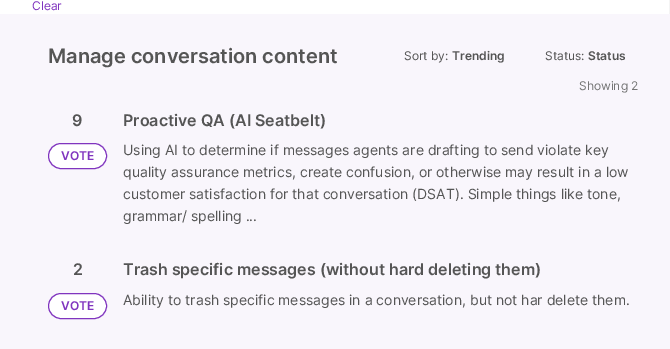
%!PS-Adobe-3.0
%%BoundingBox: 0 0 670 349
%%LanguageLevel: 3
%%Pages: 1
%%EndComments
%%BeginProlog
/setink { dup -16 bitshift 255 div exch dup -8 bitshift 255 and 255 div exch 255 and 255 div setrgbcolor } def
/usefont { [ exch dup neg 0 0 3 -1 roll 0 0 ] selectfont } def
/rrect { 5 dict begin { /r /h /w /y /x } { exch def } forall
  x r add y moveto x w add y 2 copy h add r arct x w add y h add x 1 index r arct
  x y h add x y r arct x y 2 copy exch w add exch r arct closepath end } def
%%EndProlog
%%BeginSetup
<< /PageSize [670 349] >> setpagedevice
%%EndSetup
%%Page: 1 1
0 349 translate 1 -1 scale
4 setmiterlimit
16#F9F6FC setink
0 0 670 349 rectfill
16#FFFFFF setink
0 0 669 14 rectfill
16#F4F4F4 setink
669 0 1 14 rectfill
/Inter-Regular 12 usefont
16#8034BF setink
32 10 moveto (Clear) show
/Inter-SemiBold 20 usefont
16#555555 setink
48 63 moveto (Manage conversation content) show
/Inter-Regular 12 usefont
404 60 moveto (Sort by:) show
/Inter-SemiBold 12 usefont
452 60 moveto (Trending) show
/Inter-Regular 12 usefont
545 60 moveto (Status:) show
/Inter-SemiBold 12 usefont
588 60 moveto (Status) show
/Inter-Regular 12 usefont
16#767676 setink
579 90 moveto (Showing 2) show
/Inter-SemiBold 16 usefont
16#555555 setink
72 126 moveto (9) show
16#FFFFFF setink
48.5 143.5 58 25 12.5 rrect gsave fill grestore
16#8034BF setink
stroke
/Inter-SemiBold 12 usefont
61 160 moveto (VOTE) show
/Inter-SemiBold 16 usefont
16#555555 setink
123 126 moveto (Proactive QA \(AI Seatbelt\)) show
/Inter-Regular 14 usefont
[
    [(Using AI to determine if messages agents are drafting to send violate key) 123 155]
    [(quality assurance metrics, create confusion, or otherwise may result in a low) 123 177]
    [(customer satisfaction for that conversation \(DSAT\). Simple things like tone,) 123 199]
    [(grammar/ spelling ...) 123 221]
] { aload pop moveto show } forall
/Inter-SemiBold 16 usefont
73 275 moveto (2) show
16#FFFFFF setink
48.5 293.5 58 25 12.5 rrect gsave fill grestore
16#8034BF setink
stroke
/Inter-SemiBold 12 usefont
61 310 moveto (VOTE) show
/Inter-SemiBold 16 usefont
16#555555 setink
123 275 moveto (Trash specific messages \(without hard deleting them\)) show
/Inter-Regular 14 usefont
123 305 moveto (Ability to trash specific messages in a conversation, but not har delete them.) show
showpage
%%EOF
